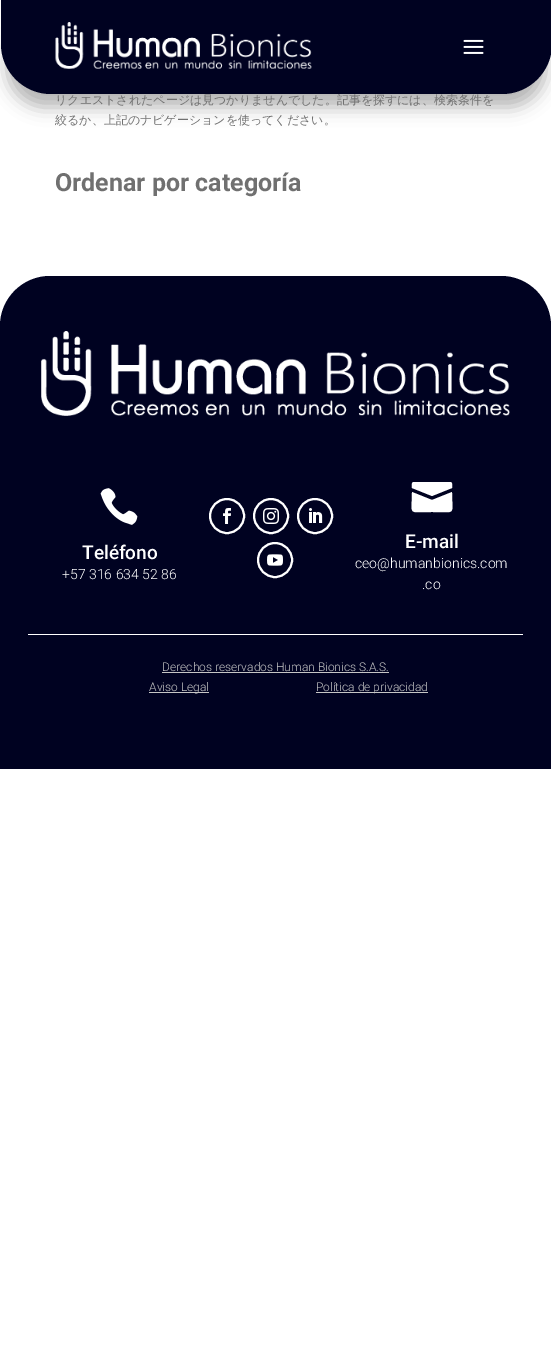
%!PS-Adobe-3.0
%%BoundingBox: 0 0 551 1364
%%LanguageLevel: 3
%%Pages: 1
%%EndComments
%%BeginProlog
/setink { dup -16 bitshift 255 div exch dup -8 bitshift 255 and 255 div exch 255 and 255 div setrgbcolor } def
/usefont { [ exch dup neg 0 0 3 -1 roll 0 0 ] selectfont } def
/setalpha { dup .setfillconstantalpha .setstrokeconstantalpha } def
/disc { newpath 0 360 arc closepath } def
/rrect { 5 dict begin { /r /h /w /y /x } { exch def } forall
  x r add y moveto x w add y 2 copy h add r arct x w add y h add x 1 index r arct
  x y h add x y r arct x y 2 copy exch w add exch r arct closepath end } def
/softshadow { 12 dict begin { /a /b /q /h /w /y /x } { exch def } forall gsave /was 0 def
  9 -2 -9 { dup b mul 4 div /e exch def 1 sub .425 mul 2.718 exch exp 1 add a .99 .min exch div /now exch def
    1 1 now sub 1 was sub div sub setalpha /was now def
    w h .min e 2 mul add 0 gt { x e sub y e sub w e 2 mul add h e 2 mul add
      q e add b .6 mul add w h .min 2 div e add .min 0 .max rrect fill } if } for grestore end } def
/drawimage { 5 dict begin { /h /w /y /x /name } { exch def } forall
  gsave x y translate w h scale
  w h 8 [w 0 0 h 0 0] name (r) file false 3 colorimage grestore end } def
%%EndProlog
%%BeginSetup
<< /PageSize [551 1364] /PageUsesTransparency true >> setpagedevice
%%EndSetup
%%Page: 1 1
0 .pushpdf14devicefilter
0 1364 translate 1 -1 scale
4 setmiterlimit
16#FFFFFF setink
0 0 551 1364 rectfill
16#000000 setink
7 25 539 82 44 9 0.3 softshadow
16#000221 setink
1 0 moveto 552 0 lineto 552 44 lineto 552 71.5 529.5 94 502 94 curveto 51 94 lineto 23.5 94 1 71.5 1 44 curveto closepath fill
(img1.raw) 55 22 257 47 drawimage
(img2.raw) 463 39 21 15 drawimage
/WenQuanYiZenHei-Medium 12 usefont
16#707070 setink
55 104 moveto (リクエストされたページは見つかりませんでした。記事を探すには、検索条件を) show
55 124 moveto (絞るか、上記のナビゲーションを使ってください。) show
/Roboto-Bold 25 usefont
55 191 moveto (Ordenar por categoría) show
16#000221 setink
50 276 moveto 501 276 lineto 528.5 276 551 298.5 551 326 curveto 551 769 lineto 0 769 lineto 0 326 lineto 0 298.5 22.5 276 50 276 curveto closepath fill
(img3.raw) 41 331 469 85 drawimage
(img4.raw) 100 488 38 37 drawimage
/Roboto-Medium 19 usefont
16#FFFFFF setink
82 559 moveto (Teléfono) show
/Roboto-Light 14 usefont
62 579 moveto (+57 316 634 52 86) show
2 setlinewidth
227 516 17 disc stroke
(img5.raw) 223 508 8 16 drawimage
271 516 17 disc stroke
(img6.raw) 263 508 16 16 drawimage
315 516 17 disc stroke
(img7.raw) 309 508 14 15 drawimage
275 560 17 disc stroke
(img8.raw) 267 554 16 12 drawimage
450 482 moveto 414 482 lineto 411 482 412 486 412 488 curveto 432 496 lineto 452 488 lineto 452 486 453 482 450 482 curveto closepath 412 492 moveto 412 516 407 512 432 512 curveto 457 512 452 516 452 492 curveto 432 500 lineto closepath fill
/Roboto-Medium 19 usefont
405 548 moveto (E-mail) show
/Roboto-Light 14 usefont
355 568 moveto (ceo@humanbionics.com) show
422 589 moveto (.co) show
28 634 495 1 rectfill
/Roboto-Light 12 usefont
16#C6C6C6 setink
162 671 moveto (Derechos reservados Human Bionics S.A.S.) show
162 672 227 1 rectfill
149 692 60 1 rectfill
149 691 moveto (Aviso Legal) show
316 692 112 1 rectfill
316 691 moveto (Política de privacidad) show
.poppdf14devicefilter showpage
%%EOF
